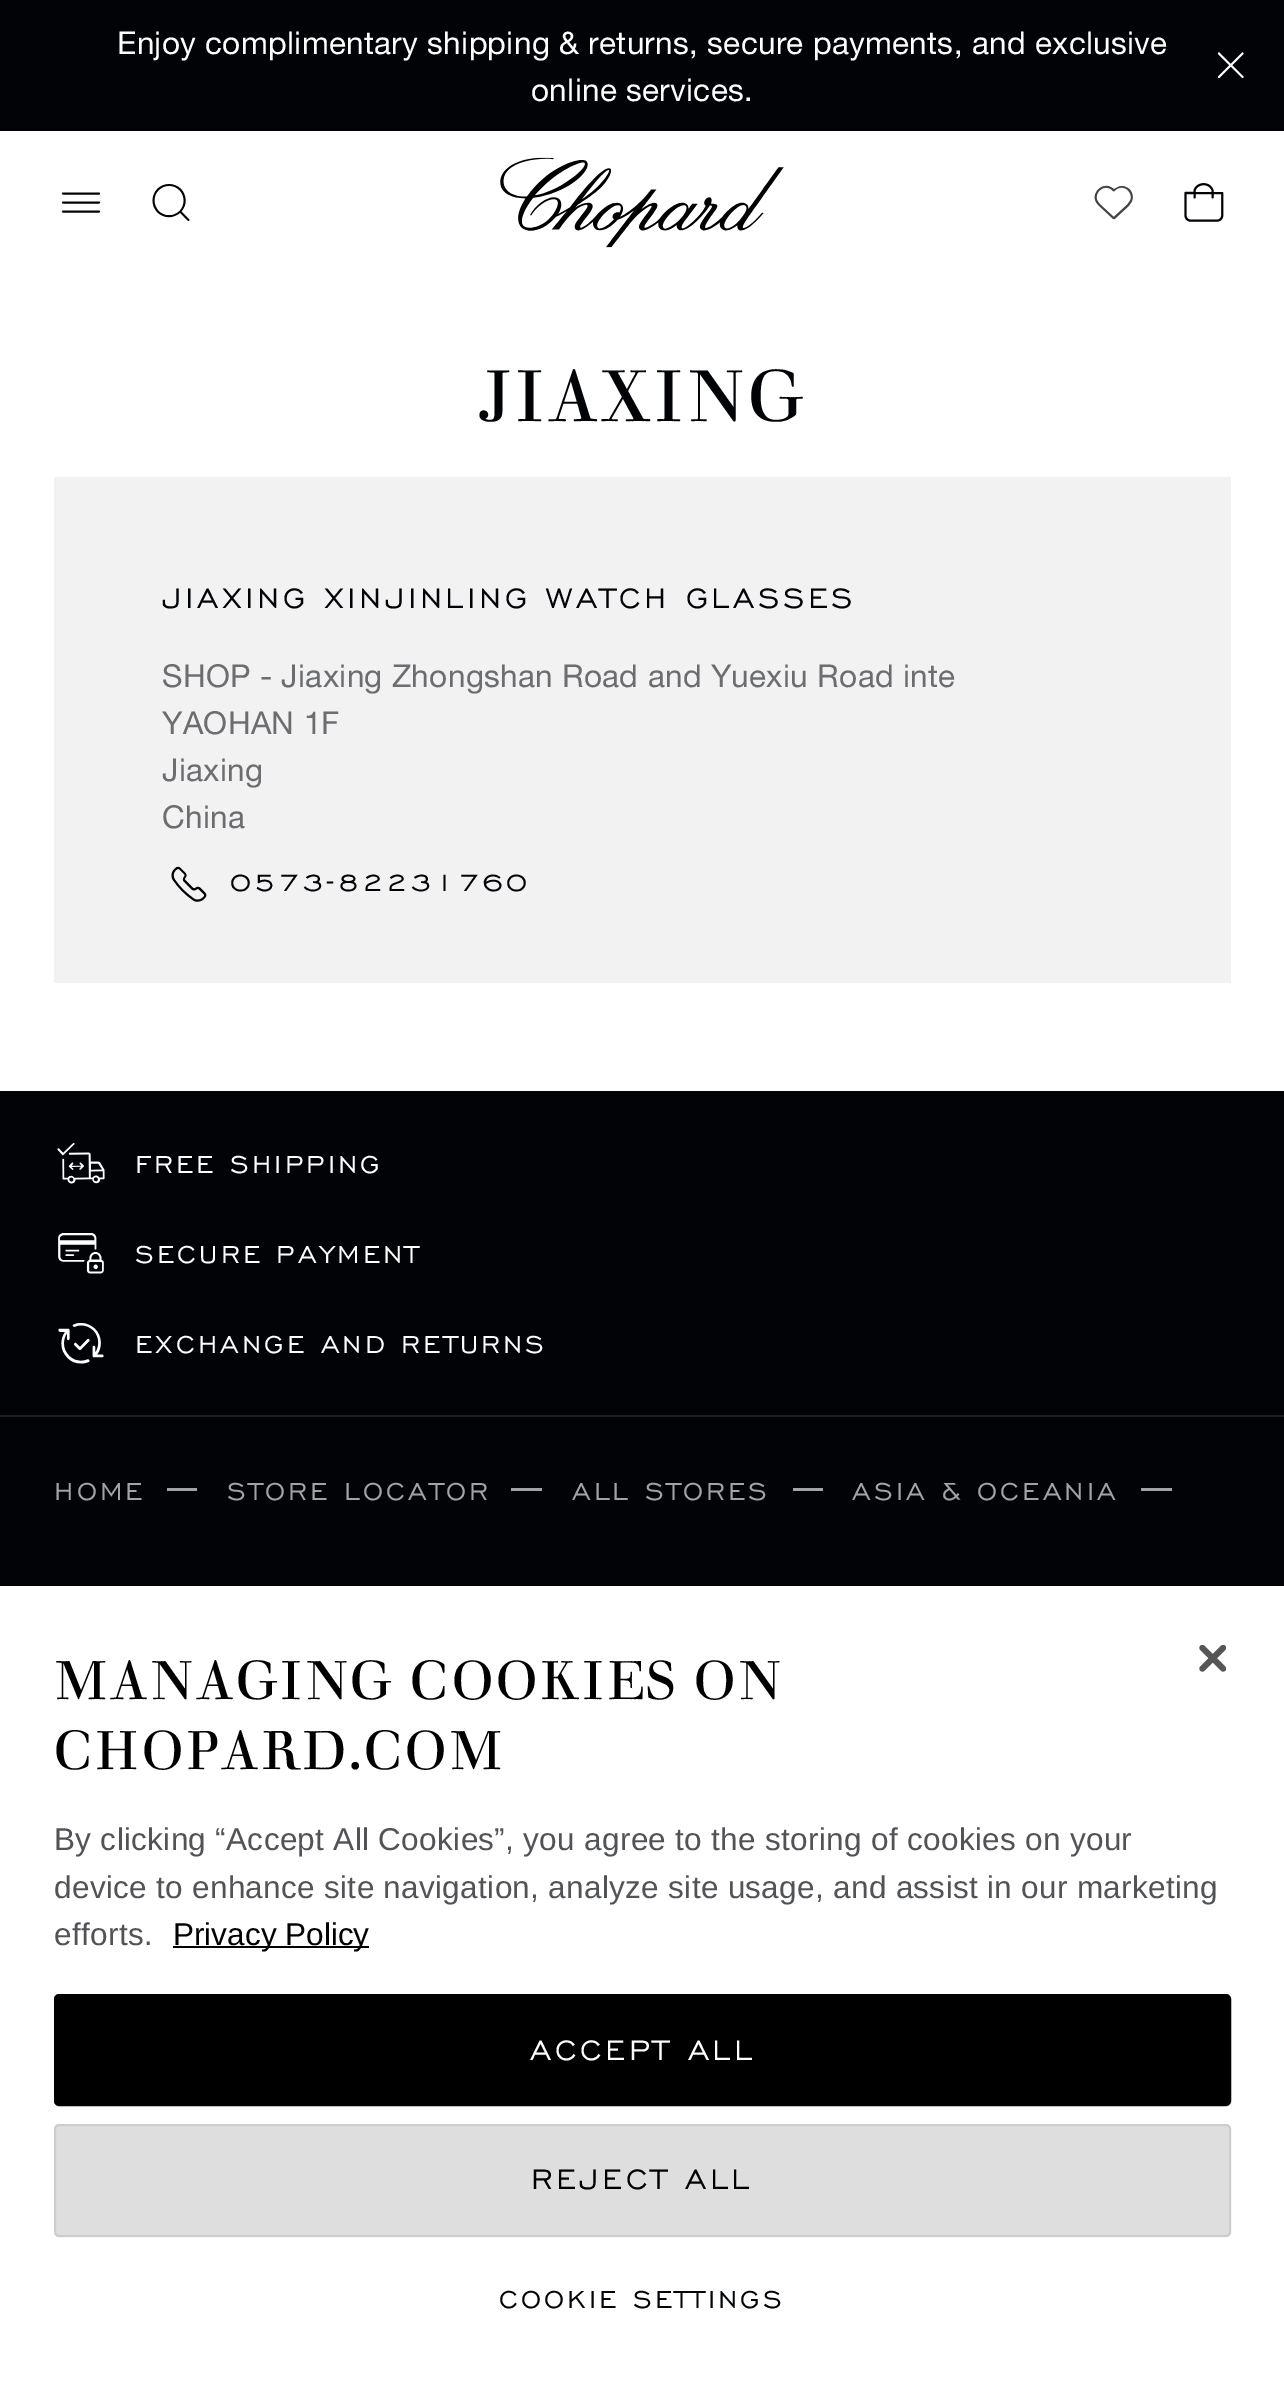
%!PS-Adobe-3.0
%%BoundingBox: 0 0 1284 2396
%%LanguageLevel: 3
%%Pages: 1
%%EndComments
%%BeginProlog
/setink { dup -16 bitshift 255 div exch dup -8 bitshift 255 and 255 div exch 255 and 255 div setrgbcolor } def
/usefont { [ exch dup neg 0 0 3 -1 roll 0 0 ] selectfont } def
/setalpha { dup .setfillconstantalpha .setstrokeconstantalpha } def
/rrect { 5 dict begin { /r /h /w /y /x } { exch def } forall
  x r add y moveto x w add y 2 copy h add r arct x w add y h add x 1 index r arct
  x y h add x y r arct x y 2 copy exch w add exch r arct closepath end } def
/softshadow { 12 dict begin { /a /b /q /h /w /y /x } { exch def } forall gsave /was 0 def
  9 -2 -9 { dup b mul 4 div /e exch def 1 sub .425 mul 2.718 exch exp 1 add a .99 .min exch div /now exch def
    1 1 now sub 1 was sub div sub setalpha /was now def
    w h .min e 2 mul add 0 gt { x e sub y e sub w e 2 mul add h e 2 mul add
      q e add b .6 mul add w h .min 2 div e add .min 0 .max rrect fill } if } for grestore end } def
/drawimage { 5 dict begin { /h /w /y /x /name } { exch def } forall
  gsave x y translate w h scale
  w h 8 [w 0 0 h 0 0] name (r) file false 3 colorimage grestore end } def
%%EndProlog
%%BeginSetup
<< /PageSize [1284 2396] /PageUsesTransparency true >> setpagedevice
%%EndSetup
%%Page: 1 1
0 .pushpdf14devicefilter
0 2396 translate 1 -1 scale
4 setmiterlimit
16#FFFFFF setink
0 0 1284 2396 rectfill
16#010307 setink
0 0 1284 131 rectfill
/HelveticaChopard-Regular 31.5 usefont
16#FEFEFE setink
117 54 moveto 0.32 0 (Enjoy complimentary shipping & returns, secure payments, and exclusive) ashow
531 101 moveto 0.32 0 (online services.) ashow
(img1.raw) 1217 52 27 27 drawimage
(img2.raw) 61 192 40 21 drawimage
(img3.raw) 152 184 38 37 drawimage
(img4.raw) 500 157 284 91 drawimage
(img5.raw) 1094 185 39 35 drawimage
(img6.raw) 1184 183 40 39 drawimage
/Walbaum-Regular 72 usefont
16#010307 setink
478 421 moveto 3.6 0 (JIAXING) ashow
16#F2F2F3 setink
54 477 1177 506 rectfill
/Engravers-Regular 36 usefont
16#010307 setink
162 608 moveto 3.6 0 (JIAXING XINJINLING WATCH GLASSES) ashow
/HelveticaChopard-Regular 31.5 usefont
16#6C6D70 setink
162 687 moveto 0.32 0 (SHOP - Jiaxing Zhongshan Road and Yuexiu Road inte) ashow
162 734 moveto 0.32 0 (YAOHAN 1F) ashow
162 781 moveto 0.32 0 (Jiaxing) ashow
162 828 moveto 0.32 0 (China) ashow
(img7.raw) 171 866 36 36 drawimage
/Engravers-Regular 31.5 usefont
16#010307 setink
230 891 moveto 3.1 0 (0573-82231760) ashow
0 1091 1284 495 rectfill
16#1C1E21 setink
0 1415 1284 2 rectfill
(img8.raw) 57 1143 48 41 drawimage
16#FEFEFE setink
135 1173 moveto 3.1 0 (FREE SHIPPING) ashow
(img9.raw) 58 1233 46 41 drawimage
135 1263 moveto 3.1 0 (SECURE PAYMENT) ashow
(img10.raw) 58 1323 46 41 drawimage
135 1353 moveto 3.1 0 (EXCHANGE AND RETURNS) ashow
16#A2A3A4 setink
54 1500 moveto 3.1 0 (HOME) ashow
167 1488 30 3 rectfill
227 1500 moveto 3.1 0 (STORE LOCATOR) ashow
511 1488 31 3 rectfill
572 1500 moveto 3.1 0 (ALL STORES) ashow
793 1488 30 3 rectfill
852 1500 moveto 3.1 0 (ASIA & OCEANIA) ashow
1141 1488 31 3 rectfill
16#000000 setink
0 1586 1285 810 0 20 0.2 softshadow
16#FFFFFF setink
0 1586 1284 810 rectfill
(img11.raw) 1199 1645 27 27 drawimage
/Walbaum-Regular 54 usefont
16#000000 setink
54 1699 moveto 2.75 0 (MANAGING COOKIES ON) ashow
54 1769 moveto 2.75 0 (CHOPARD.COM) ashow
/LiberationSans-Regular 31.5 usefont
16#515356 setink
54 1850 moveto 0.32 0 (By clicking “Accept All Cookies”, you agree to the storing of cookies on your) ashow
54 1898 moveto 0.32 0 (device to enhance site navigation, analyze site usage, and assist in our marketing) ashow
54 1945 moveto 0.32 0 (efforts.) ashow
16#000000 setink
173 1946 196 2 rectfill
173 1945 moveto (Privacy Policy) show
55 1995 1175 110 4 rrect gsave fill grestore
2 setlinewidth
stroke
/Engravers-Regular 36 usefont
16#FEFEFE setink
530 2060 moveto 3.6 0 (ACCEPT ALL) ashow
16#DEDEDF setink
54 2124 1177 113 5 rrect fill
0.5 setalpha
16#BCBDBF setink
55 2125 1175 111 4 rrect stroke
1 setalpha
16#000000 setink
531 2189 moveto 3.6 0 (REJECT ALL) ashow
/Engravers-Regular 31.5 usefont
16#010307 setink
499 2308 moveto 3.1 0 (COOKIE SETTINGS) ashow
.poppdf14devicefilter showpage
%%EOF
